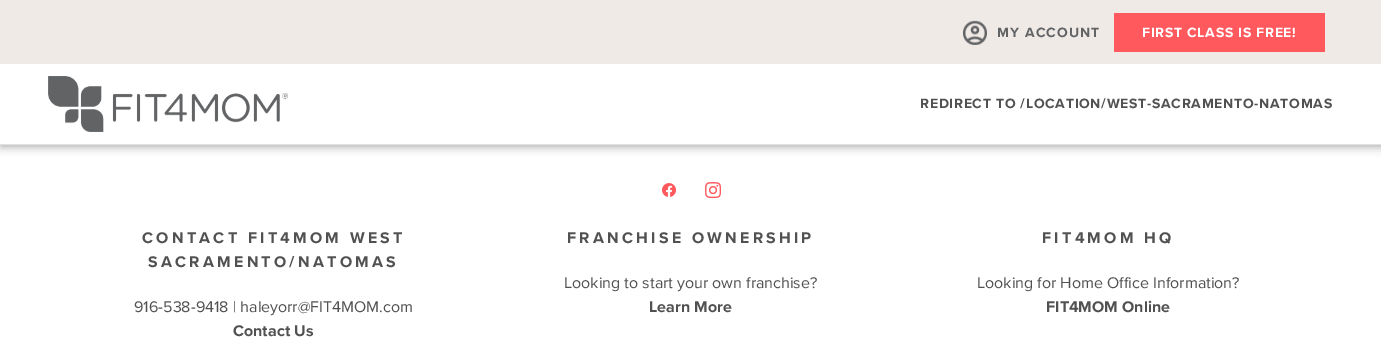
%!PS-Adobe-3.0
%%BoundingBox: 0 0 1381 348
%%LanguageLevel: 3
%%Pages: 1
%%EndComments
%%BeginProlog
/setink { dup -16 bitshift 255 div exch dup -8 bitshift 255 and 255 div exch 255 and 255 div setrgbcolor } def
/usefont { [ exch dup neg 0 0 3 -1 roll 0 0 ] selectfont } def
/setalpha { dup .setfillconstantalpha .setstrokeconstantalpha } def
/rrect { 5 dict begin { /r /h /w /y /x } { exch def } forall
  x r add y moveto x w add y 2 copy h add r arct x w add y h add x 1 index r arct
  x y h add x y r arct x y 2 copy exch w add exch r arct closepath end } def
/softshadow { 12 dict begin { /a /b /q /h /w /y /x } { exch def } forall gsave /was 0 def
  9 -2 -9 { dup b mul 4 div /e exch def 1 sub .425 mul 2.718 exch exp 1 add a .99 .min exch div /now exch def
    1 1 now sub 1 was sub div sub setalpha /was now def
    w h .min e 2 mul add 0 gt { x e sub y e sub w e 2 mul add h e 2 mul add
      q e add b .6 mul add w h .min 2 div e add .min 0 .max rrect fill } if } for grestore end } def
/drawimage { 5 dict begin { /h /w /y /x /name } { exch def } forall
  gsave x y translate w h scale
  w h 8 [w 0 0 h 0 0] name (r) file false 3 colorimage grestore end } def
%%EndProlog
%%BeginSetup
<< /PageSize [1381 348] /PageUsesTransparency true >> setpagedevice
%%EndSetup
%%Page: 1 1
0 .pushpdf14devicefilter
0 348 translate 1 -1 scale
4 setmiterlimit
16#FFFFFF setink
0 0 1381 348 rectfill
16#999999 setink
1 1 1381 145 0 5 1 softshadow
[
    [0 64 1381 80 16#FFFFFF]
    [0 144 1381 1 16#E1E1E2]
    [0 0 1381 64 16#F0EAE7]
] { aload pop setink rectfill } forall
(img1.raw) 963 20 24 25 drawimage
/ProximaNova-Bold 14 usefont
16#616365 setink
997 37 moveto 1.1 0 (MY ACCOUNT) ashow
16#FF585D setink
1114 13 211 39 rectfill
16#FFFFFF setink
1142 37 moveto 0.7 0 (FIRST CLASS IS FREE!) ashow
(img2.raw) 48 76 240 56 drawimage
16#515151 setink
920 108 moveto 0.7 0 (REDIRECT TO /LOCATION/WEST-SACRAMENTO-NATOMAS) ashow
(img3.raw) 662 183 14 14 drawimage
(img4.raw) 705 182 16 17 drawimage
/ProximaNova-Bold 16 usefont
142 243 moveto 3.25 0 (CONTACT FIT4MOM WEST) ashow
148 267 moveto 3.25 0 (SACRAMENTO/NATOMAS) ashow
/ProximaNova-Regular 16 usefont
134 312 moveto (916-538-9418 | haleyorr@FIT4MOM.com) show
/ProximaNova-Bold 16 usefont
233 336 moveto (Contact Us) show
567 243 moveto 3.25 0 (FRANCHISE OWNERSHIP) ashow
/ProximaNova-Regular 16 usefont
564 288 moveto (Looking to start your own franchise?) show
/ProximaNova-Bold 16 usefont
649 312 moveto (Learn More) show
1042 243 moveto 3.25 0 (FIT4MOM HQ) ashow
/ProximaNova-Regular 16 usefont
977 288 moveto (Looking for Home Office Information?) show
/ProximaNova-Bold 16 usefont
1046 312 moveto (FIT4MOM Online) show
.poppdf14devicefilter showpage
%%EOF
